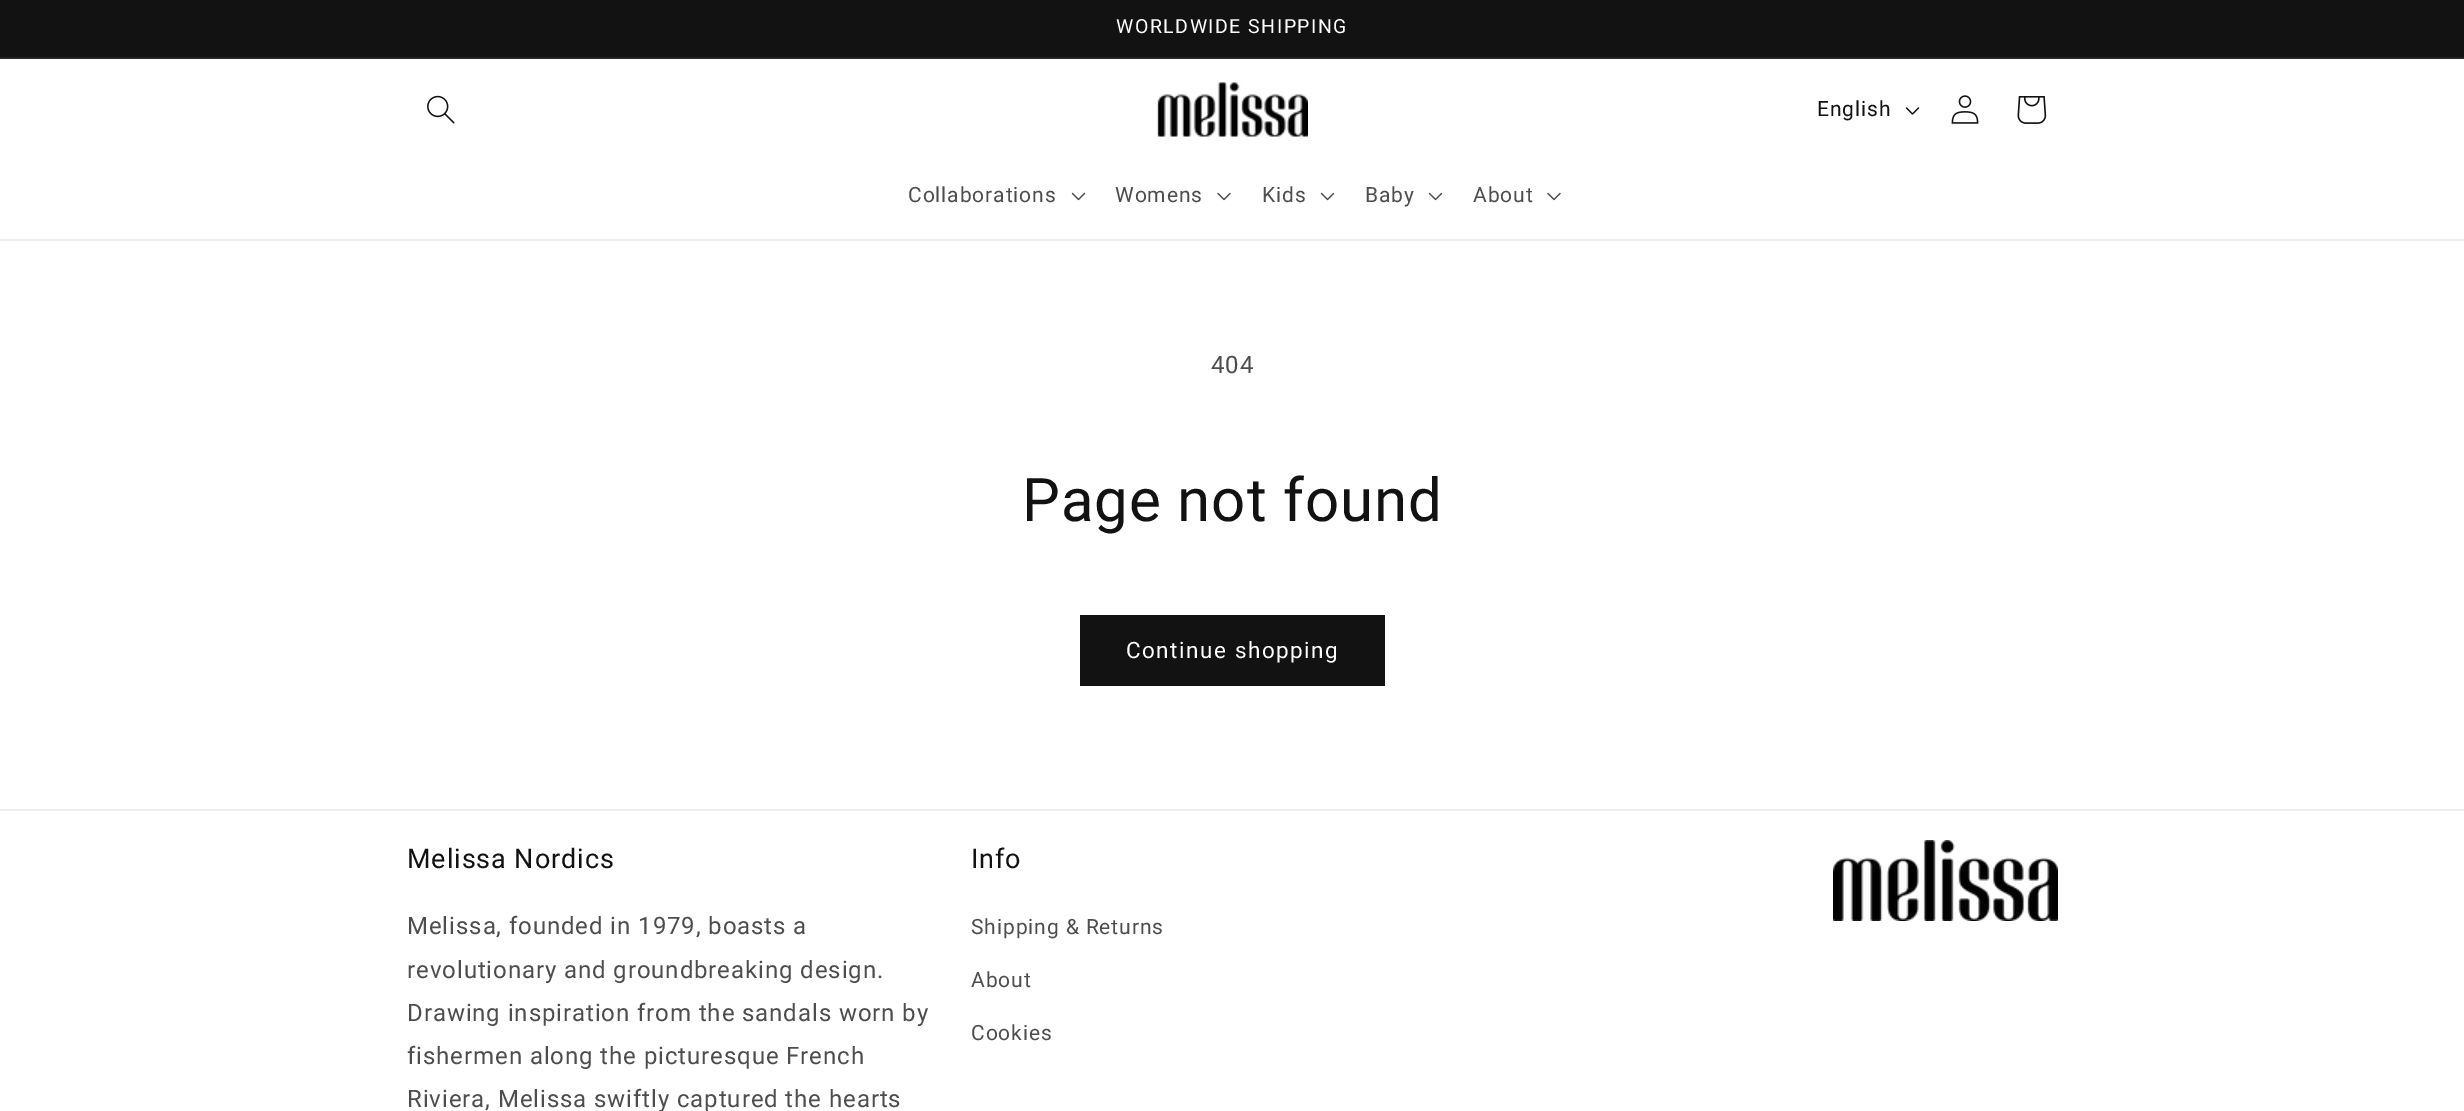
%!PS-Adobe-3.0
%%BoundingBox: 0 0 2464 1111
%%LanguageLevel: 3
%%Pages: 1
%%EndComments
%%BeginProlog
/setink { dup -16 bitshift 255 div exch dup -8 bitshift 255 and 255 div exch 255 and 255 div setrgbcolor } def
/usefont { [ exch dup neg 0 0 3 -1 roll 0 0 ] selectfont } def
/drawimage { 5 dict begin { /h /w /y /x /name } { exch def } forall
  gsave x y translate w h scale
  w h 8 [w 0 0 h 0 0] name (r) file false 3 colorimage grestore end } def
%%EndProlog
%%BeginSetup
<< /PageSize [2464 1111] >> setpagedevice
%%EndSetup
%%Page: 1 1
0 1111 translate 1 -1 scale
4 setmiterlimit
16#FFFFFF setink
0 0 2464 1111 rectfill
16#121212 setink
0 0 2464 57 rectfill
16#252525 setink
0 57 2464 2 rectfill
/Roboto-Regular 19.5 usefont
16#FFFFFF setink
1116 33 moveto 1.5 0 (WORLDWIDE SHIPPING) ashow
16#ECECEC setink
0 239 2464 2 rectfill
(img1.raw) 427 95 28 29 drawimage
(img2.raw) 1157 82 151 55 drawimage
/Roboto-Regular 21 usefont
16#121212 setink
1817 116 moveto 0.9 0 (English) ashow
(img3.raw) 1905 107 15 8 drawimage
(img4.raw) 1951 95 28 29 drawimage
(img5.raw) 2017 96 30 28 drawimage
16#4D4D4D setink
908 202 moveto 0.9 0 (Collaborations) ashow
(img6.raw) 1071 192 15 9 drawimage
1115 202 moveto 0.9 0 (Womens) ashow
(img7.raw) 1217 192 14 9 drawimage
1262 202 moveto 0.9 0 (Kids) ashow
(img6.raw) 1320 192 15 9 drawimage
1365 202 moveto 0.9 0 (Baby) ashow
(img6.raw) 1428 192 15 9 drawimage
1473 202 moveto 0.9 0 (About) ashow
(img7.raw) 1547 192 14 9 drawimage
/Roboto-Regular 24 usefont
1211 373 moveto 0.9 0 (404) ashow
/Roboto-Regular 60 usefont
16#121212 setink
1022 521 moveto 0.9 0 (Page not found) ashow
1080 615 305 71 rectfill
/Roboto-Regular 22.5 usefont
16#FFFFFF setink
1126 658 moveto 1.5 0 (Continue shopping) ashow
16#ECECEC setink
0 809 2464 2 rectfill
/Roboto-Regular 27 usefont
16#121212 setink
407 868 moveto 0.9 0 (Melissa Nordics) ashow
/Roboto-Regular 24 usefont
16#4D4D4D setink
407 934 moveto 0.9 0 (Melissa, founded in 1979, boasts a) ashow
407 978 moveto 0.9 0 (revolutionary and groundbreaking design.) ashow
407 1021 moveto 0.9 0 (Drawing inspiration from the sandals worn by) ashow
407 1064 moveto 0.9 0 (fishermen along the picturesque French) ashow
407 1107 moveto 0.9 0 (Riviera, Melissa swiftly captured the hearts) ashow
/Roboto-Regular 27 usefont
16#121212 setink
971 868 moveto 0.9 0 (Info) ashow
/Roboto-Regular 21 usefont
16#4D4D4D setink
971 934 moveto 0.9 0 (Shipping & Returns) ashow
971 987 moveto 0.9 0 (About) ashow
971 1040 moveto 0.9 0 (Cookies) ashow
(img8.raw) 1833 840 225 81 drawimage
showpage
%%EOF
